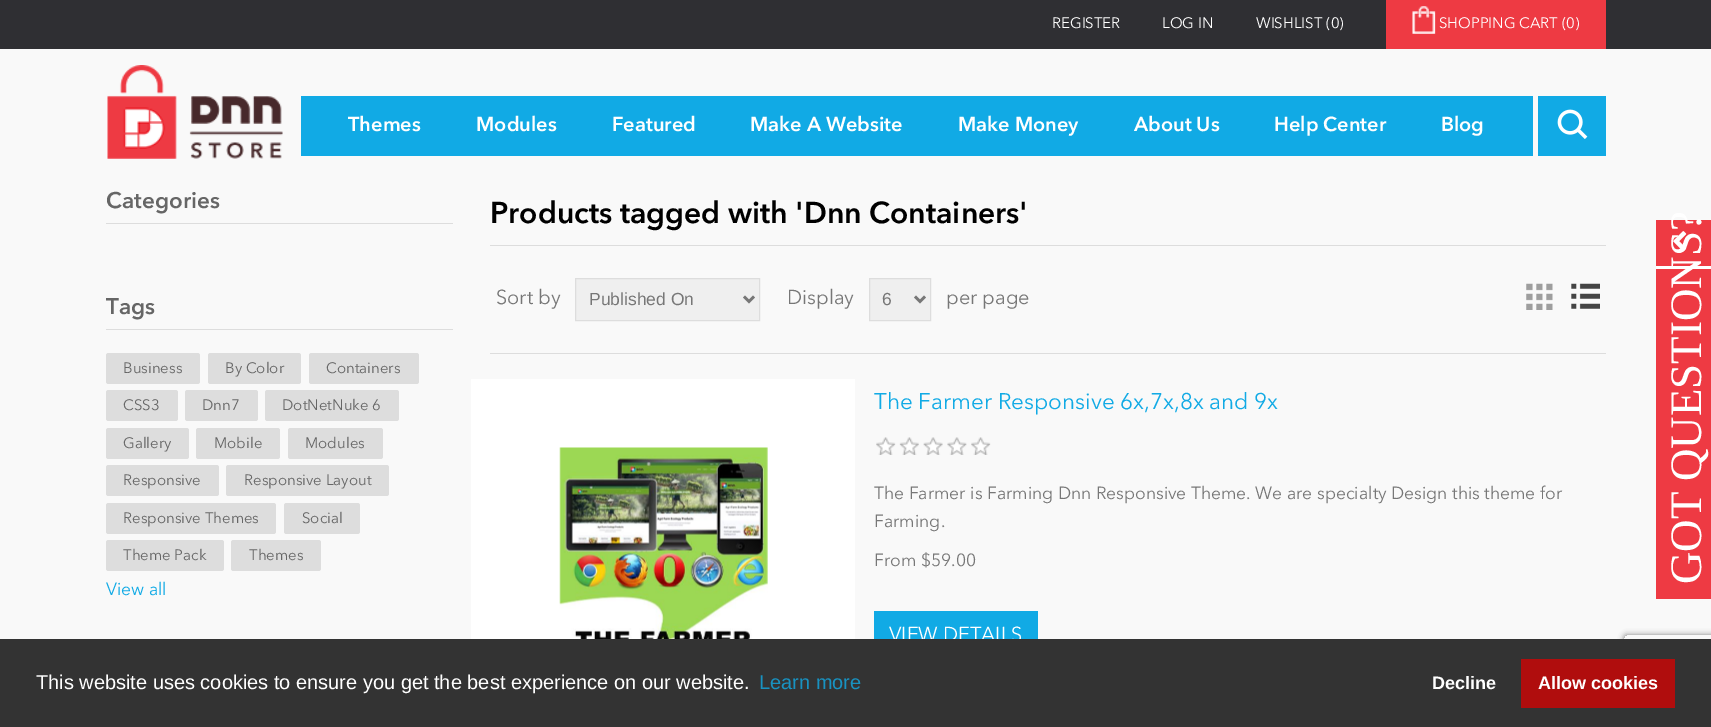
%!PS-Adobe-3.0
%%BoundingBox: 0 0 1711 727
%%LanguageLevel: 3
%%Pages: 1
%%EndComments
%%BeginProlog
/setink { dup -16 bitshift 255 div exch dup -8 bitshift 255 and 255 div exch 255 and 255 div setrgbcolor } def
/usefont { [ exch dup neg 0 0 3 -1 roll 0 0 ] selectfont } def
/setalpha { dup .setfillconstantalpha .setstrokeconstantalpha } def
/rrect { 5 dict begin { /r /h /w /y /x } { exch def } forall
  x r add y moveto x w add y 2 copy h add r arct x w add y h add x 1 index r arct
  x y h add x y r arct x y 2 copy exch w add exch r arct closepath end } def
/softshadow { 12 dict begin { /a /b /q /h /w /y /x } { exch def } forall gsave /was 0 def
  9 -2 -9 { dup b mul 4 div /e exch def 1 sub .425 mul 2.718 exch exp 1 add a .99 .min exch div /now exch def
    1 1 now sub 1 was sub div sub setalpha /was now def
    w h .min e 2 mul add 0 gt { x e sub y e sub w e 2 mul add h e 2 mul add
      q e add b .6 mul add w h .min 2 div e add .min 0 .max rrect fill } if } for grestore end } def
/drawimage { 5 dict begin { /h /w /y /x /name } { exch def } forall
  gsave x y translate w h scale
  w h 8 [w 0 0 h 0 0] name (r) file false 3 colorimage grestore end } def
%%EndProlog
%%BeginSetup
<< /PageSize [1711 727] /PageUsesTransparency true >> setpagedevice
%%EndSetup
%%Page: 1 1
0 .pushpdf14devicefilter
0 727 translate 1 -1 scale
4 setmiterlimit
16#F9F9F9 setink
0 0 1711 727 rectfill
16#2F2F33 setink
0 0 1711 49 rectfill
/AvenirNext-Regular 15 usefont
16#FFFFFF setink
[
    [(REGISTER) 1052 28]
    [(LOG IN) 1162 28]
    [(WISHLIST \(0\)) 1256 28]
] { aload pop moveto show } forall
16#EE3A43 setink
1386 0 220 49 rectfill
(img1.raw) 1412 6 24 28 drawimage
16#FFFFFF setink
1439 28 moveto (SHOPPING CART \(0\)) show
(img2.raw) 107 65 176 94 drawimage
16#11AAE5 setink
301 96 1232 60 rectfill
/AvenirNext-SemiBold 20 usefont
16#FFFFFF setink
[
    [(Themes) 348 131]
    [(Modules) 476 131]
    [(Featured) 612 131]
    [(Make A Website) 750 131]
    [(Make Money) 958 131]
    [(About Us) 1134 131]
    [(Help Center) 1274 131]
    [(Blog) 1441 131]
] { aload pop moveto show } forall
16#11AAE5 setink
1538 96 68 60 rectfill
(img3.raw) 1557 109 31 30 drawimage
16#DDDDDD setink
106 223 347 1 rectfill
/AvenirNext-SemiBold 22.5 usefont
16#666666 setink
106 208 moveto (Categories) show
16#DDDDDD setink
106 329 347 1 rectfill
16#666666 setink
106 314 moveto (Tags) show
16#DDDDDD setink
106 353 94 31 2.5 rrect fill
/AvenirNext-Regular 15 usefont
16#666666 setink
123 373 moveto (Business) show
16#DDDDDD setink
208 353 93 31 2.5 rrect fill
16#666666 setink
225 373 moveto (By Color) show
16#DDDDDD setink
309 353 110 31 2.5 rrect fill
16#666666 setink
326 373 moveto (Containers) show
16#DDDDDD setink
106 390 72 31 2.5 rrect fill
16#666666 setink
123 410 moveto (CSS3) show
16#DDDDDD setink
185 390 73 31 2.5 rrect fill
16#666666 setink
202 410 moveto (Dnn7) show
16#DDDDDD setink
265 390 134 31 2.5 rrect fill
16#666666 setink
282 410 moveto (DotNetNuke 6) show
16#DDDDDD setink
106 428 83 31 2.5 rrect fill
16#666666 setink
123 448 moveto (Gallery) show
16#DDDDDD setink
196 428 84 31 2.5 rrect fill
16#666666 setink
214 448 moveto (Mobile) show
16#DDDDDD setink
288 428 95 31 2.5 rrect fill
16#666666 setink
305 448 moveto (Modules) show
16#DDDDDD setink
106 465 113 31 2.5 rrect fill
16#666666 setink
123 485 moveto (Responsive) show
16#DDDDDD setink
226 465 163 31 2.5 rrect fill
16#666666 setink
244 485 moveto (Responsive Layout) show
16#DDDDDD setink
106 503 170 31 2.5 rrect fill
16#666666 setink
123 523 moveto (Responsive Themes) show
16#DDDDDD setink
284 503 76 31 2.5 rrect fill
16#666666 setink
302 523 moveto (Social) show
16#DDDDDD setink
106 540 118 31 2.5 rrect fill
16#666666 setink
123 560 moveto (Theme Pack) show
16#DDDDDD setink
231 540 90 31 2.5 rrect fill
16#666666 setink
249 560 moveto (Themes) show
/AvenirNext-Regular 17.5 usefont
16#11AAE5 setink
106 595 moveto (View all) show
16#DDDDDD setink
490 245 1116 1 rectfill
/AvenirNext-SemiBold 30 usefont
16#000000 setink
490 223 moveto (Products tagged with 'Dnn Containers') show
16#DDDDDD setink
490 353 1116 1 rectfill
/AvenirNext-Regular 20 usefont
16#777777 setink
496 304 moveto (Sort by) show
16#EFEFEF setink
575.5 278.5 moveto 759.5 278.5 lineto 759.5 320.5 lineto 575.5 320.5 lineto closepath gsave fill grestore
16#DDDDDD setink
stroke
16#777777 setink
2.5 setlinewidth
744 296.5 moveto 749 301.5 lineto 754 296.5 lineto stroke
/LiberationSans-Regular 17.5 usefont
589 305 moveto (Published On) show
/AvenirNext-Regular 20 usefont
787 304 moveto (Display) show
16#EFEFEF setink
869.5 278.5 moveto 930.5 278.5 lineto 930.5 320.5 lineto 869.5 320.5 lineto closepath gsave fill grestore
16#DDDDDD setink
1 setlinewidth
stroke
16#777777 setink
2.5 setlinewidth
915 296.5 moveto 920 301.5 lineto 925 296.5 lineto stroke
/LiberationSans-Regular 17.5 usefont
882 305 moveto (6) show
/AvenirNext-Regular 20 usefont
946 304 moveto (per page) show
(img4.raw) 1526 283 27 27 drawimage
(img5.raw) 1571 283 29 26 drawimage
16#FFFFFF setink
471 379 384 260 rectfill
(img6.raw) 559 447 209 192 drawimage
/AvenirNext-Regular 22.5 usefont
16#11AAE5 setink
874 409 moveto (The Farmer Responsive 6x,7x,8x and 9x) show
(img7.raw) 876 437 115 18 drawimage
/AvenirNext-Regular 17.5 usefont
16#777777 setink
[
    [(The Farmer is Farming Dnn Responsive Theme. We are specialty Design this theme for) 874 499]
    [(Farming.) 874 527]
    [(From $59.00) 874 566]
] { aload pop moveto show } forall
16#11AAE5 setink
874 611 164 28 rectfill
/AvenirNext-Regular 20 usefont
16#FFFFFF setink
889 641 moveto (VIEW DETAILS) show
[
    [1656 269 55 330 16#EE3A43]
    [1656 220 55 46 16#EE3A43]
    [1656 266 55 3 16#FFFFFF]
] { aload pop setink rectfill } forall
(img8.raw) 1673 231 14 21 drawimage
/LiberationSerif-Regular 45 usefont
gsave 1701 584 translate -90 rotate 0 0 moveto -1 0 32 (GOT QUESTIONS?) widthshow grestore
gsave
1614 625 moveto 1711 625 lineto 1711 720 lineto 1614 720 lineto closepath 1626.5 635 moveto 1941.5 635 lineto 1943 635 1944 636 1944 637.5 curveto 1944 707.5 lineto 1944 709 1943 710 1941.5 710 curveto 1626.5 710 lineto 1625 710 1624 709 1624 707.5 curveto 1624 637.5 lineto 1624 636 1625 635 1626.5 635 curveto closepath eoclip newpath
16#808080 setink
1624 635 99 75 2.5 3 1 softshadow
grestore
16#333333 setink
0 639 1711 88 rectfill
/LiberationSans-Regular 20 usefont
16#FFFFFF setink
36 689 moveto (This website uses cookies to ensure you get the best experience on our website.) show
16#1892C1 setink
759 689 moveto (Learn more) show
/LiberationSans-Bold 18 usefont
16#FFFFFF setink
1432 689 moveto (Decline) show
16#B00D0D setink
1521 659 154 49 rectfill
16#FFFFFF setink
1538 689 moveto (Allow cookies) show
.poppdf14devicefilter showpage
%%EOF
